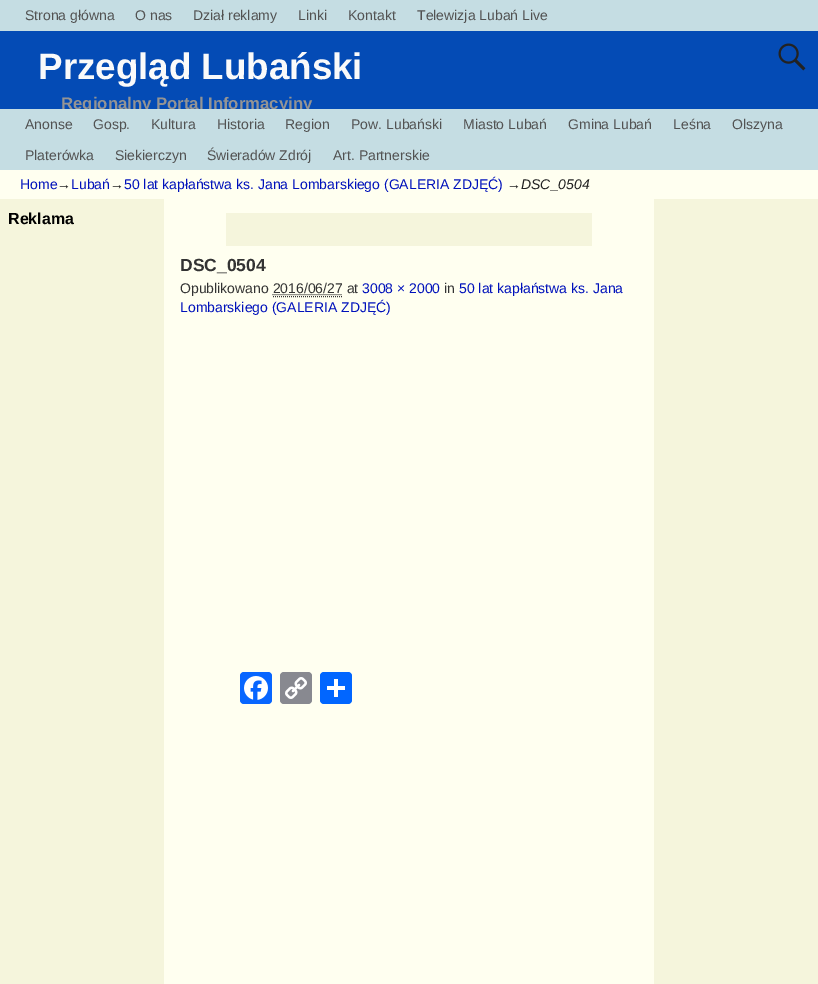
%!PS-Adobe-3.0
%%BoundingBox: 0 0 818 984
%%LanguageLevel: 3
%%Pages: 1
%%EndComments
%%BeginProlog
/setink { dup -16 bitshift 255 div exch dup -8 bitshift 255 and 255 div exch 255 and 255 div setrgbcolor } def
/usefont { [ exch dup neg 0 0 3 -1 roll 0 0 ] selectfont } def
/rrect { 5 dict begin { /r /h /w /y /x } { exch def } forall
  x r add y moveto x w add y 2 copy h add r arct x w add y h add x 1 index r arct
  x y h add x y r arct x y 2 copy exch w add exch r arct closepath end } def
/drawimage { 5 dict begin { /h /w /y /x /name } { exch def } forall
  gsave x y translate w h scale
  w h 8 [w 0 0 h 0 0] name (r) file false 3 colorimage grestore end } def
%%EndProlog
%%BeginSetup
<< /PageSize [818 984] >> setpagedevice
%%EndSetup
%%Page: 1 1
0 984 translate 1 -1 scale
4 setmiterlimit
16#044BB5 setink
0 0 818 984 rectfill
16#C5DDE3 setink
0 0 818 31 rectfill
/LiberationSans-Regular 14 usefont
16#525252 setink
[
    [(Strona główna) 25 20]
    [(O nas) 135 20]
    [(Dział reklamy) 193 20]
    [(Linki) 298 20]
    [(Kontakt) 348 20]
    [(Telewizja Lubań Live) 417 20]
] { aload pop moveto show } forall
/LiberationSans-Bold 36.75 usefont
16#FAFAFA setink
38 79 moveto (Przegląd Lubański) show
(img1.raw) 778 43 28 28 drawimage
/LiberationSans-Bold 16.75 usefont
16#949494 setink
61 109 moveto (Regionalny Portal Informacyjny) show
16#C5DDE3 setink
0 109 818 61 rectfill
/LiberationSans-Regular 14 usefont
16#525252 setink
[
    [(Anonse) 25 129]
    [(Gosp.) 93 129]
    [(Kultura) 151 129]
    [(Historia) 217 129]
    [(Region) 285 129]
    [(Pow. Lubański) 351 129]
    [(Miasto Lubań) 463 129]
    [(Gmina Lubań) 568 129]
    [(Leśna) 673 129]
    [(Olszyna) 732 129]
    [(Platerówka) 25 160]
    [(Siekierczyn) 115 160]
    [(Świeradów Zdrój) 207 160]
    [(Art. Partnerskie) 333 160]
] { aload pop moveto show } forall
16#FFFFF0 setink
0 170 818 814 rectfill
16#0011BB setink
20 189 moveto (Home) show
16#222222 setink
57 189 moveto (→) show
16#0011BB setink
71 189 moveto (Lubań) show
16#222222 setink
110 189 moveto (→) show
16#0011BB setink
124 189 moveto (50 lat kapłaństwa ks. Jana Lombarskiego \(GALERIA ZDJĘĆ\)) show
16#222222 setink
507 189 moveto (→) show
/LiberationSans-Italic 14 usefont
521 189 moveto (DSC_0504) show
16#F5F5DC setink
0 199 164 785 rectfill
/LiberationSans-Bold 16 usefont
16#000000 setink
8 224 moveto (Reklama) show
16#F5F5DC setink
654 199 164 785 rectfill
226 213 366 33 rectfill
/LiberationSans-Bold 17.5 usefont
16#333333 setink
180 271 moveto (DSC_0504) show
/LiberationSans-Regular 14 usefont
180 293 moveto (Opublikowano 2016/06/27 at) show
16#0011BB setink
362 293 moveto (3008 × 2000) show
16#333333 setink
444 293 moveto (in) show
16#0011BB setink
459 293 moveto (50 lat kapłaństwa ks. Jana) show
16#333333 setink
[1 1] 0 setdash
272.5 294.5 moveto 342.5 294.5 lineto stroke
273 296.5 moveto 343 296.5 lineto stroke
16#0011BB setink
180 312 moveto (Lombarskiego \(GALERIA ZDJĘĆ\)) show
16#0866FF setink
240 672 32 32 4 rrect fill
(img2.raw) 244 676 24 24 drawimage
16#888990 setink
280 672 32 32 4 rrect fill
(img3.raw) 285 677 22 22 drawimage
16#0166FF setink
320 672 32 32 4 rrect fill
16#FFFFFF setink
334 679 4 18 rectfill
327 686 18 4 rectfill
showpage
%%EOF
